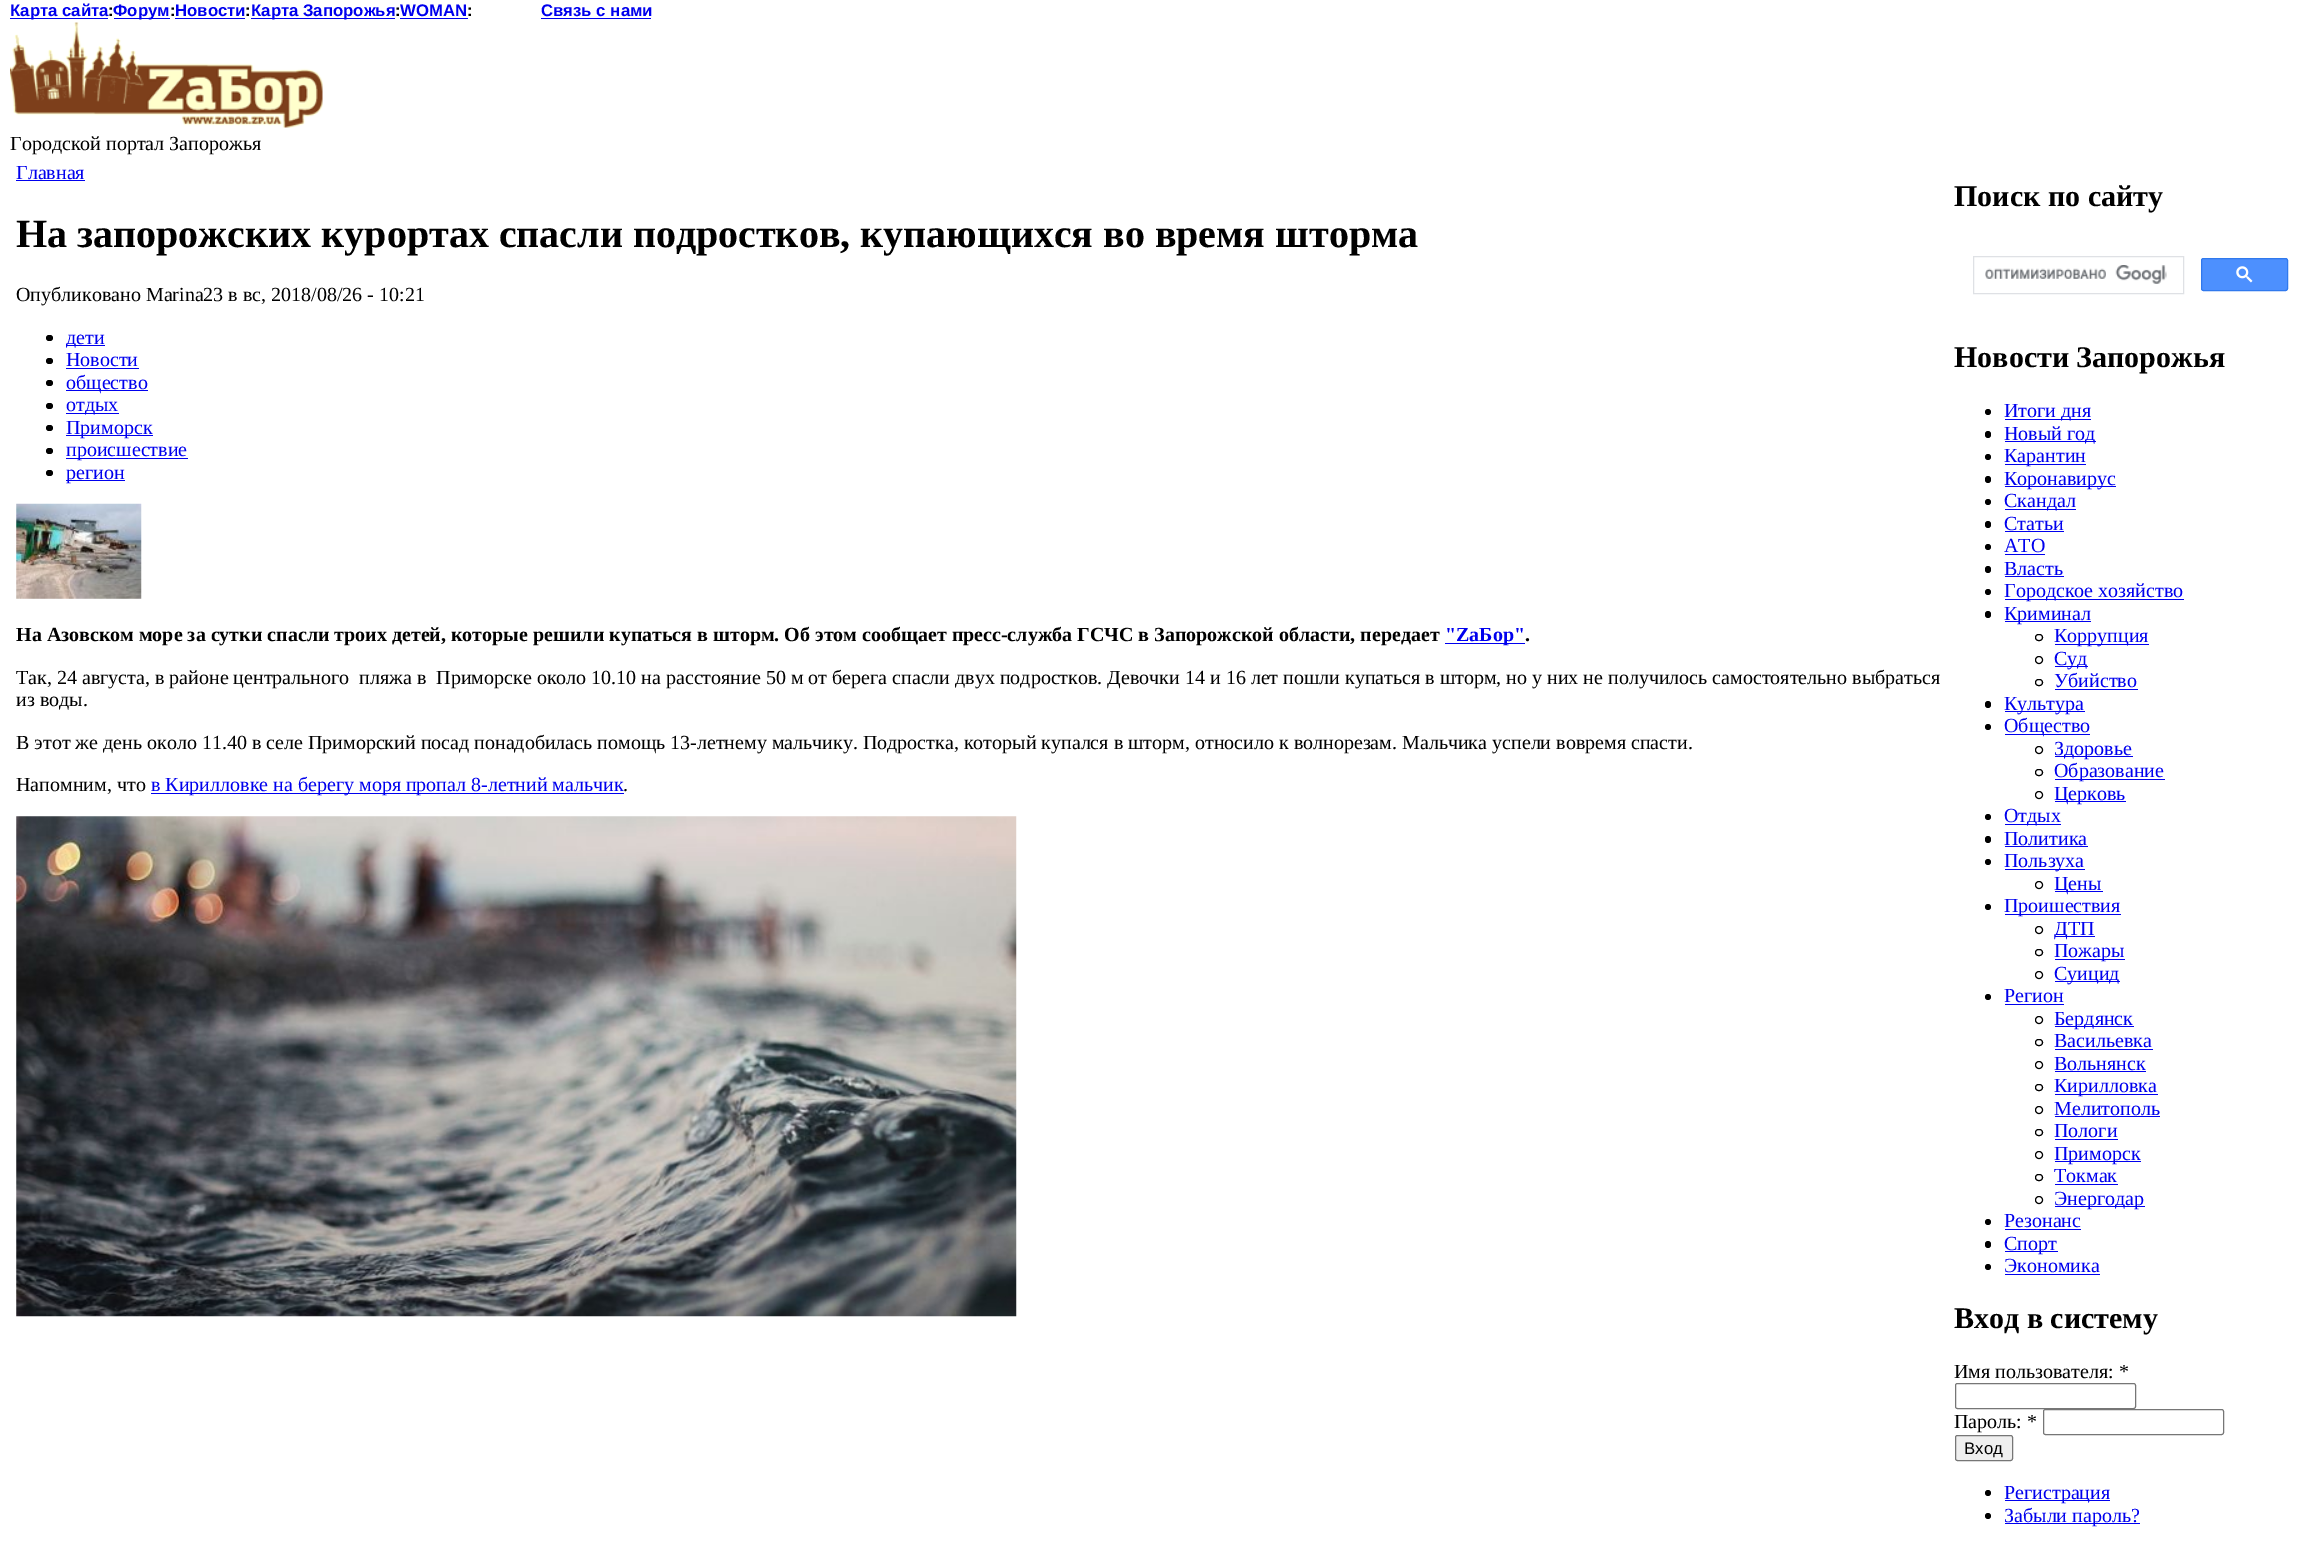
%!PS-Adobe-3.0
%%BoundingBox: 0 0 2314 1564
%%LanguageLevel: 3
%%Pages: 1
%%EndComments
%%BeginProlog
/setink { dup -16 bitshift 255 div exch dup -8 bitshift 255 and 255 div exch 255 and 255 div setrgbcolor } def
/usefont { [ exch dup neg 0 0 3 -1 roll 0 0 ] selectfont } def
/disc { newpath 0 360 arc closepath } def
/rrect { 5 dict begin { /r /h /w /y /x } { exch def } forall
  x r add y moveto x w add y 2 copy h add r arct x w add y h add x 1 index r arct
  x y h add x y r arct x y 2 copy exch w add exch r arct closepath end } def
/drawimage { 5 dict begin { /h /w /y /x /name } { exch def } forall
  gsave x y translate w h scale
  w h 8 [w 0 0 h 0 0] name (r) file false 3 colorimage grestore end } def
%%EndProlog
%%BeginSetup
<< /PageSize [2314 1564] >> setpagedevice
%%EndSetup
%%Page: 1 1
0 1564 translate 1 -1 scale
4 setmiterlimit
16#FFFFFF setink
0 0 2314 1564 rectfill
16#0000EE setink
10 18 98 1 rectfill
/LiberationSans-Bold 16.75 usefont
10 16 moveto (Карта сайта) show
16#000000 setink
108 16 moveto (:) show
16#0000EE setink
114 18 56 1 rectfill
113 16 moveto (Форум) show
16#000000 setink
170 16 moveto (:) show
16#0000EE setink
175 16 moveto (Новости) show
175 18 70 1 rectfill
16#000000 setink
245 16 moveto (:) show
16#0000EE setink
251 18 144 1 rectfill
251 16 moveto (Карта Запорожья) show
16#000000 setink
395 16 moveto (:) show
16#0000EE setink
400 16 moveto (WOMAN) show
400 18 68 1 rectfill
16#000000 setink
467 16 moveto (:) show
16#0000EE setink
541 16 moveto (Связь с нами) show
541 18 110 1 rectfill
(img1.raw) 10 22 313 106 drawimage
/LiberationSerif-Regular 20 usefont
16#000000 setink
10 150 moveto (Городской портал Запорожья) show
16#0000EE setink
16 179 moveto (Главная) show
16 180 69 1 rectfill
/LiberationSerif-Bold 40 usefont
16#000000 setink
16 247 moveto (На запорожских курортах спасли подростков, купающихся во время шторма) show
/LiberationSerif-Regular 20 usefont
16 301 moveto (Опубликовано Marina23 в вс, 2018/08/26 - 10:21) show
46 335 7 6 3 rrect fill
16#0000EE setink
66 345 39 1 rectfill
66 344 moveto (дети) show
16#000000 setink
46 358 7 6 3 rrect fill
16#0000EE setink
66 366 moveto (Новости) show
66 368 73 1 rectfill
16#000000 setink
46 380 7 6 3 rrect fill
16#0000EE setink
66 390 82 1 rectfill
66 389 moveto (общество) show
16#000000 setink
46 403 7 6 3 rrect fill
16#0000EE setink
66 413 53 1 rectfill
66 411 moveto (отдых) show
16#000000 setink
46 425 7 6 3 rrect fill
16#0000EE setink
66 435 87 1 rectfill
66 434 moveto (Приморск) show
16#000000 setink
46 448 7 6 3 rrect fill
16#0000EE setink
66 458 122 1 rectfill
66 456 moveto (происшествие) show
16#000000 setink
46 470 7 6 3 rrect fill
16#0000EE setink
66 480 59 1 rectfill
66 479 moveto (регион) show
(img2.raw) 16 503 126 96 drawimage
/LiberationSerif-Bold 20 usefont
16#000000 setink
16 641 moveto (На Азовском море за сутки спасли троих детей, которые решили купаться в шторм. Об этом сообщает пресс-служба ГСЧС в Запорожской области, передает) show
16#0000EE setink
1445 643 80 1 rectfill
1445 641 moveto ("ZаБор") show
16#000000 setink
1525 641 moveto (.) show
/LiberationSerif-Regular 20 usefont
[
    [(Так, 24 августа, в районе центрального  пляжа в  Приморске около 10.10 на расстояние 50 м от берега спасли двух подростков. Девочки 14 и 16 лет пошли купаться в шторм, но у них не получилось самостоятельно выбраться) 16 684]
    [(из воды.) 16 706]
    [(В этот же день около 11.40 в селе Приморский посад понадобилась помощь 13-летнему мальчику. Подростка, который купался в шторм, относило к волнорезам. Мальчика успели вовремя спасти.) 16 749]
    [(Напомним, что) 16 791]
] { aload pop moveto show } forall
16#0000EE setink
151 793 473 1 rectfill
151 791 moveto (в Кирилловке на берегу моря пропал 8-летний мальчик) show
16#000000 setink
623 791 moveto (.) show
(img3.raw) 16 816 1001 501 drawimage
/LiberationSerif-Bold 30 usefont
1954 206 moveto (Поиск по сайту) show
16#DFE1E5 setink
1973.5 256.5 210 37 rectstroke
(img4.raw) 1985 265 182 19 drawimage
16#4D90FE setink
2201.5 258.5 86 32 2 rrect gsave fill grestore
16#3079ED setink
stroke
(img5.raw) 2236 266 17 17 drawimage
16#000000 setink
1954 367 moveto (Новости Запорожья) show
1988 412 3 disc fill
16#0000EE setink
2005 419 86 1 rectfill
/LiberationSerif-Regular 20 usefont
2004 417 moveto (Итоги дня) show
16#000000 setink
1985 431 6 7 3 rrect fill
16#0000EE setink
2005 441 91 1 rectfill
2004 440 moveto (Новый год) show
16#000000 setink
1988 457 3 disc fill
16#0000EE setink
2005 464 81 1 rectfill
2004 462 moveto (Карантин) show
16#000000 setink
1985 476 6 7 3 rrect fill
16#0000EE setink
2005 486 111 1 rectfill
2004 485 moveto (Коронавирус) show
16#000000 setink
1988 502 3 disc fill
16#0000EE setink
2005 509 71 1 rectfill
2004 507 moveto (Скандал) show
16#000000 setink
1985 521 6 7 3 rrect fill
16#0000EE setink
2004 530 moveto (Статьи) show
2005 531 59 1 rectfill
16#000000 setink
1988 547 3 disc fill
16#0000EE setink
2004 552 moveto (АТО) show
2005 554 40 1 rectfill
16#000000 setink
1985 566 6 7 3 rrect fill
16#0000EE setink
2004 575 moveto (Власть) show
2005 576 59 1 rectfill
16#000000 setink
1988 592 3 disc fill
16#0000EE setink
2005 599 179 1 rectfill
2004 597 moveto (Городское хозяйство) show
16#000000 setink
1985 611 6 7 3 rrect fill
16#0000EE setink
2005 621 86 1 rectfill
2004 620 moveto (Криминал) show
16#000000 setink
2035.5 634.5 7 6 3 rrect stroke
16#0000EE setink
2055 644 94 1 rectfill
2054 642 moveto (Коррупция) show
16#000000 setink
2039 660 3.5 disc stroke
16#0000EE setink
2055 666 33 1 rectfill
2054 665 moveto (Суд) show
16#000000 setink
2035.5 679.5 7 6 3 rrect stroke
16#0000EE setink
2054 687 moveto (Убийство) show
2055 689 83 1 rectfill
16#000000 setink
1985 701 6 7 3 rrect fill
16#0000EE setink
2005 711 80 1 rectfill
2004 710 moveto (Культура) show
16#000000 setink
1988 727 3 disc fill
16#0000EE setink
2005 734 85 1 rectfill
2004 732 moveto (Общество) show
16#000000 setink
2039 750 3.5 disc stroke
16#0000EE setink
2055 756 78 1 rectfill
2054 755 moveto (Здоровье) show
16#000000 setink
2035.5 769.5 7 6 3 rrect stroke
16#0000EE setink
2055 779 110 1 rectfill
2054 777 moveto (Образование) show
16#000000 setink
2039 795 3.5 disc stroke
16#0000EE setink
2055 801 71 1 rectfill
2054 800 moveto (Церковь) show
16#000000 setink
1988 817 3 disc fill
16#0000EE setink
2005 824 56 1 rectfill
2004 822 moveto (Отдых) show
16#000000 setink
1985 836 6 7 3 rrect fill
16#0000EE setink
2004 845 moveto (Политика) show
2005 846 83 1 rectfill
16#000000 setink
1988 862 3 disc fill
16#0000EE setink
2005 869 80 1 rectfill
2004 867 moveto (Пользуха) show
16#000000 setink
2039 885 3.5 disc stroke
16#0000EE setink
2055 891 48 1 rectfill
2054 890 moveto (Цены) show
16#000000 setink
1988 907 3 disc fill
16#0000EE setink
2005 914 116 1 rectfill
2004 912 moveto (Проишествия) show
16#000000 setink
2039 930 3.5 disc stroke
16#0000EE setink
2055 936 40 1 rectfill
2054 935 moveto (ДТП) show
16#000000 setink
2035.5 949.5 7 6 3 rrect stroke
16#0000EE setink
2055 959 70 1 rectfill
2054 957 moveto (Пожары) show
16#000000 setink
2039 975 3.5 disc stroke
16#0000EE setink
2055 981 65 1 rectfill
2054 980 moveto (Суицид) show
16#000000 setink
1988 997 3 disc fill
16#0000EE setink
2004 1002 moveto (Регион) show
2005 1004 59 1 rectfill
16#000000 setink
2039 1020 3.5 disc stroke
16#0000EE setink
2055 1026 79 1 rectfill
2054 1025 moveto (Бердянск) show
16#000000 setink
2035.5 1039.5 7 6 3 rrect stroke
16#0000EE setink
2054 1047 moveto (Васильевка) show
2055 1049 98 1 rectfill
16#000000 setink
2039 1065 3.5 disc stroke
16#0000EE setink
2054 1070 moveto (Вольнянск) show
2055 1071 91 1 rectfill
16#000000 setink
2035.5 1084.5 7 6 3 rrect stroke
16#0000EE setink
2055 1094 103 1 rectfill
2054 1092 moveto (Кирилловка) show
16#000000 setink
2039 1110 3.5 disc stroke
16#0000EE setink
2054 1115 moveto (Мелитополь) show
2055 1116 105 1 rectfill
16#000000 setink
2035.5 1129.5 7 6 3 rrect stroke
16#0000EE setink
2054 1137 moveto (Пологи) show
2055 1139 63 1 rectfill
16#000000 setink
2039 1155 3.5 disc stroke
16#0000EE setink
2055 1161 86 1 rectfill
2054 1160 moveto (Приморск) show
16#000000 setink
2035.5 1174.5 7 6 3 rrect stroke
16#0000EE setink
2054 1182 moveto (Токмак) show
2055 1184 63 1 rectfill
16#000000 setink
2039 1200 3.5 disc stroke
16#0000EE setink
2055 1206 90 1 rectfill
2054 1205 moveto (Энергодар) show
16#000000 setink
1988 1222 3 disc fill
16#0000EE setink
2004 1227 moveto (Резонанс) show
2005 1229 76 1 rectfill
16#000000 setink
1985 1241 6 7 3 rrect fill
16#0000EE setink
2005 1251 53 1 rectfill
2004 1250 moveto (Спорт) show
16#000000 setink
1988 1267 3 disc fill
16#0000EE setink
2004 1272 moveto (Экономика) show
2005 1274 95 1 rectfill
/LiberationSerif-Bold 30 usefont
16#000000 setink
1954 1328 moveto (Вход в систему) show
/LiberationSerif-Regular 20 usefont
1954 1378 moveto (Имя пользователя: *) show
16#767676 setink
1955.5 1383.5 180 25 2 rrect stroke
16#000000 setink
1954 1428 moveto (Пароль: *) show
16#767676 setink
2043.5 1409.5 180 25 2 rrect stroke
16#EFEFEF setink
1955.5 1435.5 57 25 2 rrect gsave fill grestore
16#767676 setink
stroke
/LiberationSans-Regular 16.75 usefont
16#000000 setink
1964 1454 moveto (Вход) show
1988 1493 3 disc fill
16#0000EE setink
2005 1500 105 1 rectfill
/LiberationSerif-Regular 20 usefont
2004 1499 moveto (Регистрация) show
16#000000 setink
1988 1516 3 disc fill
16#0000EE setink
2005 1523 135 1 rectfill
2004 1522 moveto (Забыли пароль?) show
showpage
%%EOF
